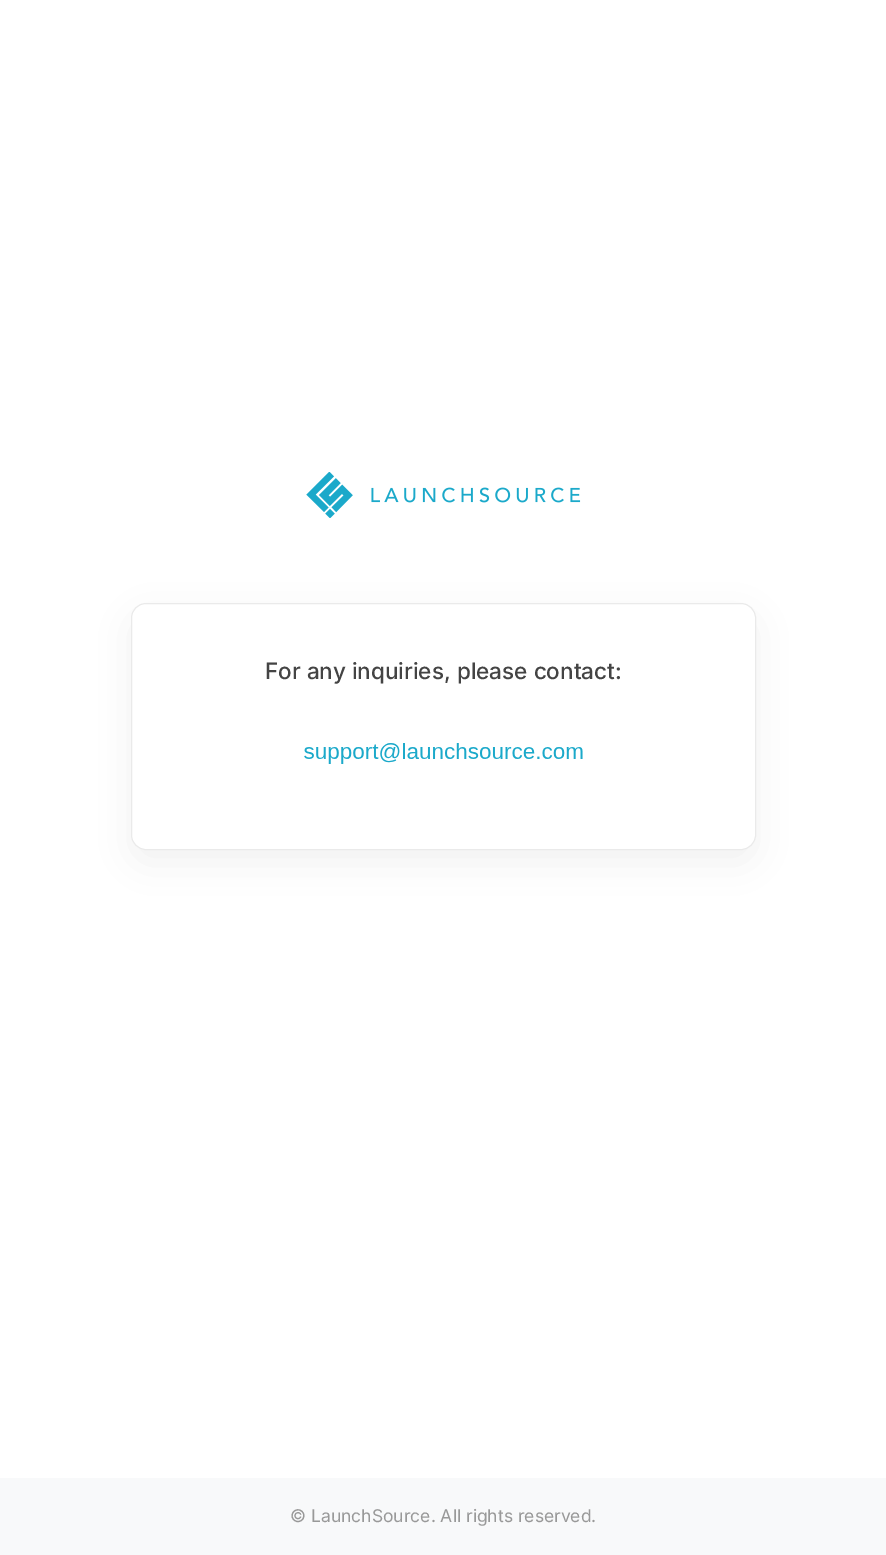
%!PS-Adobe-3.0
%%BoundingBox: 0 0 886 1555
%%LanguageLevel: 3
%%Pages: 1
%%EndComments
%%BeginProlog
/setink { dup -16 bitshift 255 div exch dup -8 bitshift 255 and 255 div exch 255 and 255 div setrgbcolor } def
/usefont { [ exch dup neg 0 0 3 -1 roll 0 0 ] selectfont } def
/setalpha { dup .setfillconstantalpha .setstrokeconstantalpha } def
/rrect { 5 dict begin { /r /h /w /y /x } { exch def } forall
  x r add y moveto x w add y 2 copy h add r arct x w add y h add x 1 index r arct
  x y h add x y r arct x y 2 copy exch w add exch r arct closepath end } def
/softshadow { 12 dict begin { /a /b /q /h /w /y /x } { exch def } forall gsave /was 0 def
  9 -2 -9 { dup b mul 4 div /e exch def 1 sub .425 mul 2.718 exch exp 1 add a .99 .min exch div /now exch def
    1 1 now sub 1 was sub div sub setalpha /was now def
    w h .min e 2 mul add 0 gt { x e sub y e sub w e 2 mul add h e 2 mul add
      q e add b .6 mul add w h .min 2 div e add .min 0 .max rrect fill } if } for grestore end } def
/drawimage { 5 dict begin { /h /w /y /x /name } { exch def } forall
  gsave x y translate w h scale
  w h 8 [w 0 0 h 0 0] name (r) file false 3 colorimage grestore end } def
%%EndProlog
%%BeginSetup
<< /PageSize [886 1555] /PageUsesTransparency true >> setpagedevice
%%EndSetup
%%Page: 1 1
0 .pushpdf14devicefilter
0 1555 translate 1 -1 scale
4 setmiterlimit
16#FFFFFF setink
0 0 886 1555 rectfill
(img1.raw) 306 472 275 46 drawimage
16#000000 setink
131 615 625 248 15 19 0.06 softshadow
16#FFFFFF setink
131.5 603.5 624 246 14.5 rrect gsave fill grestore
16#EAEAEA setink
stroke
/Inter-Medium 22.5 usefont
16#444444 setink
265 679 moveto (For any inquiries, please contact:) show
(img2.raw) 304 743 279 21 drawimage
16#F8F9FA setink
0 1478 886 77 rectfill
/Inter-Regular 17.5 usefont
16#999999 setink
290 1522 moveto (© LaunchSource. All rights reserved.) show
.poppdf14devicefilter showpage
%%EOF
